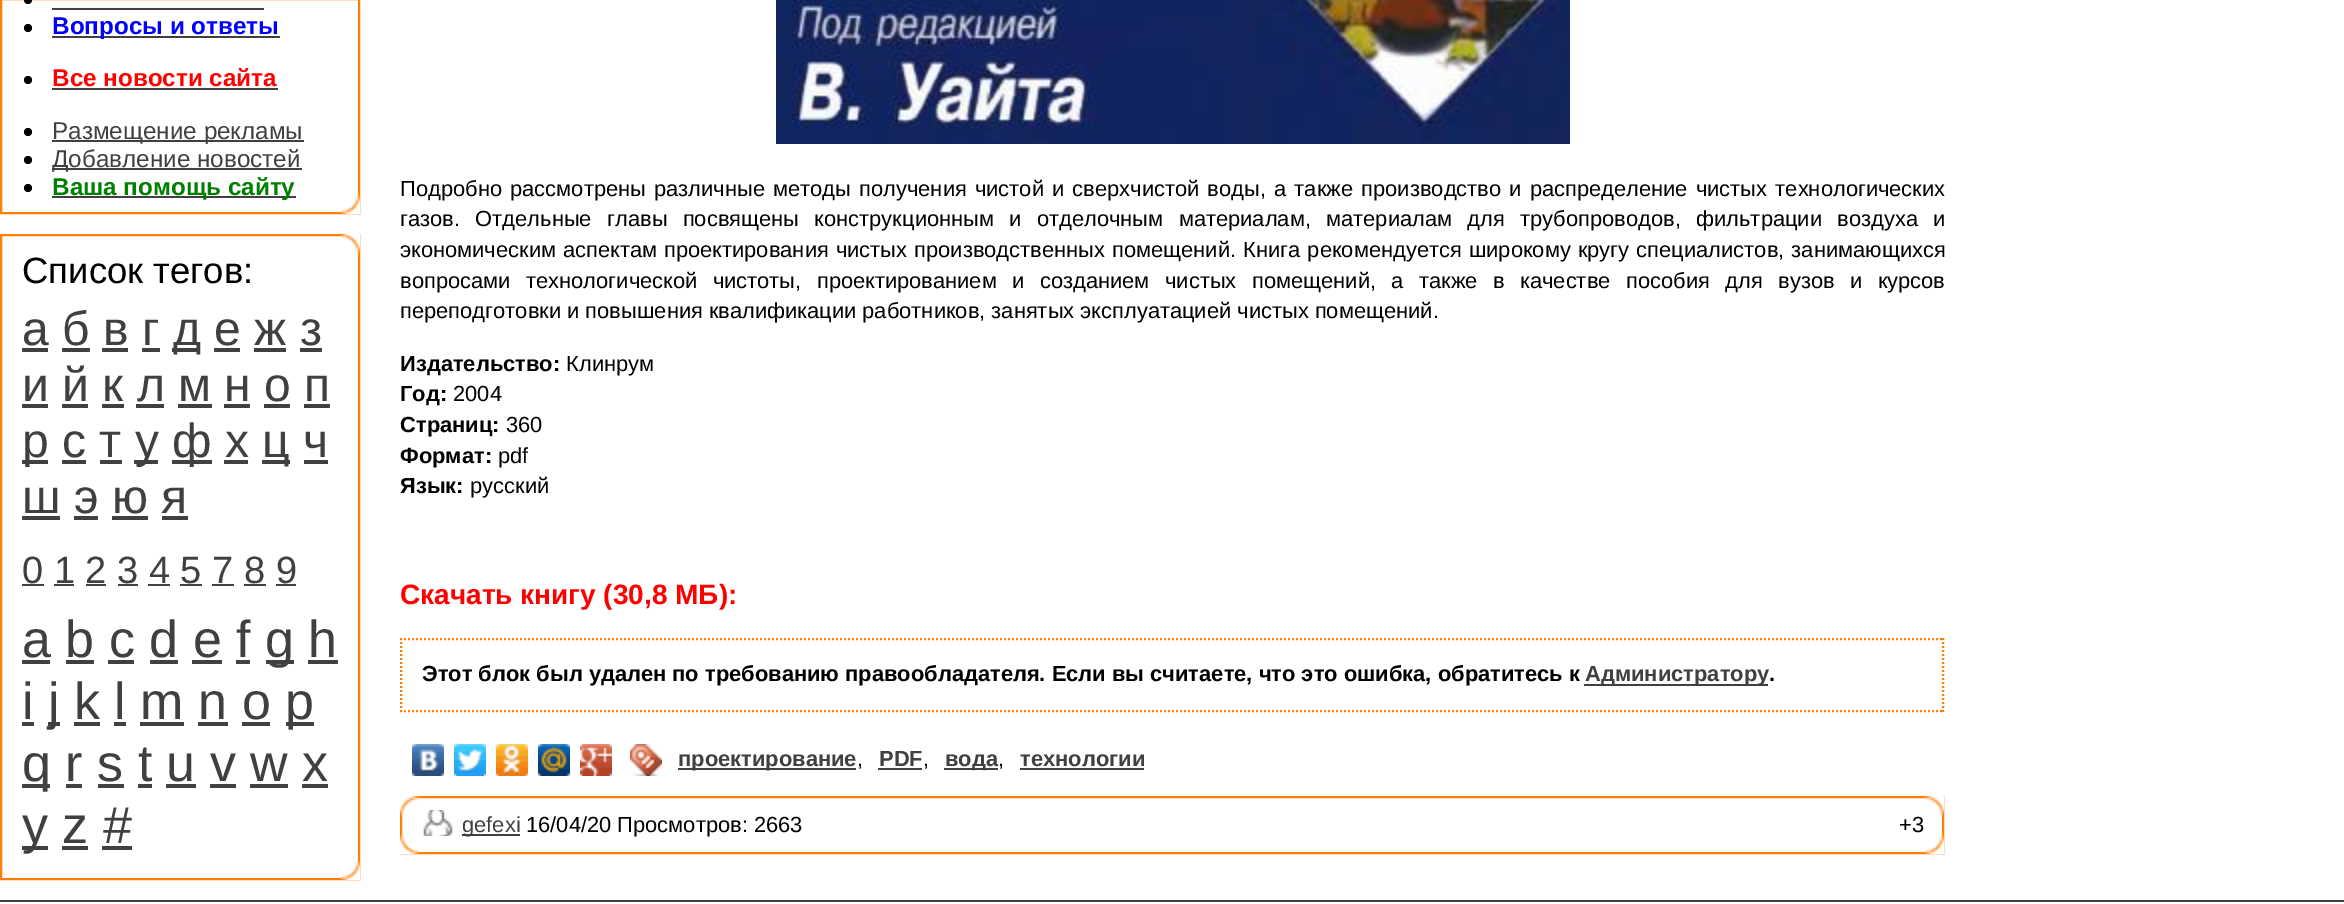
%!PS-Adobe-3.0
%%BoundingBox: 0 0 2344 904
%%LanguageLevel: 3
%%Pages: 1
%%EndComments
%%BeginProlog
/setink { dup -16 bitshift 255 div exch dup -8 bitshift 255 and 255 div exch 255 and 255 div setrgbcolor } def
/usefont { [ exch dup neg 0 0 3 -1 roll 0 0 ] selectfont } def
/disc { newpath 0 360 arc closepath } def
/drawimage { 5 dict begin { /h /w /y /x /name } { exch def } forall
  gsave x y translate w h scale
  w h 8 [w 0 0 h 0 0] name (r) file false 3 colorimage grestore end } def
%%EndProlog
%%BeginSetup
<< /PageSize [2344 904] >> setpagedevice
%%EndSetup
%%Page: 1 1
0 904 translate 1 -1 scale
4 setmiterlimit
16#FFFFFF setink
0 0 2344 904 rectfill
16#FF7E00 setink
2 setlinewidth
1 -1 358 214 rectstroke
16#000000 setink
28 0 4 disc fill
16#404040 setink
52 8 212 2 rectfill
16#000000 setink
28 28 4 disc fill
16#404040 setink
52 36 228 2 rectfill
/LiberationSans-Bold 24.25 usefont
16#0000FF setink
52 34 moveto (Вопросы и ответы) show
16#000000 setink
28 80 4 disc fill
16#FF0000 setink
52 86 moveto (Все новости сайта) show
16#404040 setink
52 88 226 2 rectfill
16#000000 setink
28 132 4 disc fill
16#404040 setink
52 140 252 2 rectfill
/LiberationSans-Regular 24.25 usefont
52 139 moveto (Размещение рекламы) show
16#000000 setink
28 160 4 disc fill
16#404040 setink
52 168 250 2 rectfill
52 167 moveto (Добавление новостей) show
16#000000 setink
28 188 4 disc fill
16#404040 setink
52 196 244 2 rectfill
/LiberationSans-Bold 24.25 usefont
16#008000 setink
52 195 moveto (Ваша помощь сайту) show
(img1.raw) 340 194 20 20 drawimage
16#FF7E00 setink
1 235 358 644 rectstroke
(img2.raw) 340 234 20 20 drawimage
/LiberationSans-Regular 36.5 usefont
16#000000 setink
22 283 moveto (Список тегов:) show
/LiberationSans-Regular 48 usefont
16#404040 setink
22 345 moveto (а б в г) show
22 348 26 4 rectfill
172 348 28 4 rectfill
173 345 moveto (д е ж з) show
[
    [62 348 28 4 16#404040]
    [102 348 26 4 16#404040]
    [142 348 18 4 16#404040]
    [214 348 26 4 16#404040]
    [254 348 32 4 16#404040]
    [300 348 22 4 16#404040]
] { aload pop setink rectfill } forall
22 401 moveto (и й к л м н о п) show
[
    [22 404 26 4 16#404040]
    [62 404 26 4 16#404040]
    [102 404 22 4 16#404040]
    [136 404 28 4 16#404040]
    [178 404 34 4 16#404040]
    [224 404 26 4 16#404040]
    [264 404 26 4 16#404040]
    [304 404 26 4 16#404040]
    [22 460 26 4 16#404040]
] { aload pop setink rectfill } forall
22 457 moveto (р с т) show
134 460 24 4 rectfill
135 457 moveto (у) show
172 460 40 4 rectfill
172 457 moveto (ф х) show
262 460 28 4 rectfill
262 457 moveto (ц ч) show
[
    [62 460 24 4 16#404040]
    [100 460 22 4 16#404040]
    [224 460 24 4 16#404040]
    [304 460 24 4 16#404040]
] { aload pop setink rectfill } forall
22 513 moveto (ш э ю я) show
[
    [22 516 38 4 16#404040]
    [74 516 24 4 16#404040]
    [112 516 36 4 16#404040]
    [162 516 26 4 16#404040]
] { aload pop setink rectfill } forall
/LiberationSans-Regular 38 usefont
22 583 moveto (0 1 2 3 4 5 7 8 9) show
[
    [22 584 22 2 16#404040]
    [54 584 20 2 16#404040]
    [86 584 20 2 16#404040]
    [118 584 20 2 16#404040]
    [148 584 22 2 16#404040]
    [180 584 22 2 16#404040]
    [212 584 22 2 16#404040]
    [244 584 22 2 16#404040]
    [276 584 20 2 16#404040]
] { aload pop setink rectfill } forall
/LiberationSans-Regular 52 usefont
22 657 moveto (a b c d e f) show
22 660 28 4 rectfill
266 660 28 4 rectfill
265 657 moveto (g h) show
[
    [66 660 28 4 16#404040]
    [108 660 26 4 16#404040]
    [150 660 28 4 16#404040]
    [192 660 30 4 16#404040]
    [236 660 14 4 16#404040]
    [308 660 30 4 16#404040]
] { aload pop setink rectfill } forall
22 719 moveto (i) show
22 722 12 4 rectfill
48 722 12 4 rectfill
48 719 moveto (j k l m n o) show
286 722 28 4 rectfill
285 719 moveto (p) show
[
    [74 722 26 4 16#404040]
    [114 722 12 4 16#404040]
    [140 722 44 4 16#404040]
    [198 722 30 4 16#404040]
    [242 722 28 4 16#404040]
    [22 784 28 4 16#404040]
] { aload pop setink rectfill } forall
22 781 moveto (q r s t u v w x) show
[
    [66 784 16 4 16#404040]
    [98 784 26 4 16#404040]
    [138 784 14 4 16#404040]
    [166 784 30 4 16#404040]
    [210 784 26 4 16#404040]
    [250 784 38 4 16#404040]
    [302 784 26 4 16#404040]
    [22 846 26 4 16#404040]
] { aload pop setink rectfill } forall
22 843 moveto (y z #) show
62 846 26 4 rectfill
102 846 30 4 rectfill
(img1.raw) 340 860 20 20 drawimage
(img3.raw) 776 0 794 144 drawimage
/LiberationSans-Regular 21.9 usefont
16#000000 setink
400 196 moveto 2.1 0 32 (Подробно рассмотрены различные методы получения чистой и сверхчистой воды, а также производство и распределение чистых технологических) widthshow
400 226 moveto 9.25 0 32 (газов. Отдельные главы посвящены конструкционным и отделочным материалам, материалам для трубопроводов, фильтрации воздуха и) widthshow
400 257 moveto 1 0 32 (экономическим аспектам проектирования чистых производственных помещений. Книга рекомендуется широкому кругу специалистов, занимающихся) widthshow
400 288 moveto 9.4 0 32 (вопросами технологической чистоты, проектированием и созданием чистых помещений, а также в качестве пособия для вузов и курсов) widthshow
400 318 moveto (переподготовки и повышения квалификации работников, занятых эксплуатацией чистых помещений.) show
/LiberationSans-Bold 21.9 usefont
400 371 moveto (Издательство:) show
/LiberationSans-Regular 21.9 usefont
566 371 moveto (Клинрум) show
/LiberationSans-Bold 21.9 usefont
400 401 moveto (Год:) show
/LiberationSans-Regular 21.9 usefont
453 401 moveto (2004) show
/LiberationSans-Bold 21.9 usefont
400 432 moveto (Cтраниц:) show
/LiberationSans-Regular 21.9 usefont
506 432 moveto (360) show
/LiberationSans-Bold 21.9 usefont
400 463 moveto (Формат:) show
/LiberationSans-Regular 21.9 usefont
498 463 moveto (pdf) show
/LiberationSans-Bold 21.9 usefont
400 493 moveto (Язык:) show
/LiberationSans-Regular 21.9 usefont
470 493 moveto (русский) show
/LiberationSans-Bold 28 usefont
16#FF0000 setink
400 604 moveto (Скачать книгу \(30,8 МБ\):) show
16#FF7E00 setink
[2 2] 0 setdash
400 639 moveto 1944 639 lineto stroke
1943 638 moveto 1943 712 lineto stroke
400 711 moveto 1944 711 lineto stroke
401 638 moveto 401 712 lineto stroke
/LiberationSans-Bold 21.9 usefont
16#000000 setink
422 681 moveto (Этот блок был удален по требованию правообладателя. Если вы считаете, что это ошибка, обратитесь к) show
16#404040 setink
1584 684 184 2 rectfill
1585 681 moveto (Администратору) show
16#000000 setink
1769 681 moveto (.) show
(img4.raw) 412 744 32 32 drawimage
(img5.raw) 454 744 32 32 drawimage
(img6.raw) 496 744 32 32 drawimage
(img7.raw) 538 744 32 32 drawimage
(img8.raw) 580 744 32 32 drawimage
(img9.raw) 630 744 32 32 drawimage
16#404040 setink
678 768 178 2 rectfill
678 766 moveto (проектирование) show
/LiberationSans-Regular 21.9 usefont
16#000000 setink
857 766 moveto (,) show
/LiberationSans-Bold 21.9 usefont
16#404040 setink
879 766 moveto (PDF) show
878 768 44 2 rectfill
/LiberationSans-Regular 21.9 usefont
16#000000 setink
923 766 moveto (,) show
16#404040 setink
944 768 54 2 rectfill
/LiberationSans-Bold 21.9 usefont
945 766 moveto (вода) show
/LiberationSans-Regular 21.9 usefont
16#000000 setink
998 766 moveto (,) show
/LiberationSans-Bold 21.9 usefont
16#404040 setink
1020 766 moveto (технологии) show
1020 768 124 2 rectfill
16#FF7E00 setink
[] 0 setdash
401 797 1542 56 rectstroke
(img10.raw) 400 796 20 20 drawimage
(img2.raw) 1924 796 20 20 drawimage
(img11.raw) 423 810 30 26 drawimage
16#404040 setink
462 834 58 2 rectfill
/LiberationSans-Regular 21.9 usefont
462 832 moveto (gefexi) show
16#000000 setink
526 832 moveto (16/04/20 Просмотров: 2663) show
1899 832 moveto (+3) show
(img12.raw) 400 834 20 20 drawimage
(img1.raw) 1924 834 20 20 drawimage
16#404040 setink
0 900 2344 2 rectfill
showpage
%%EOF
